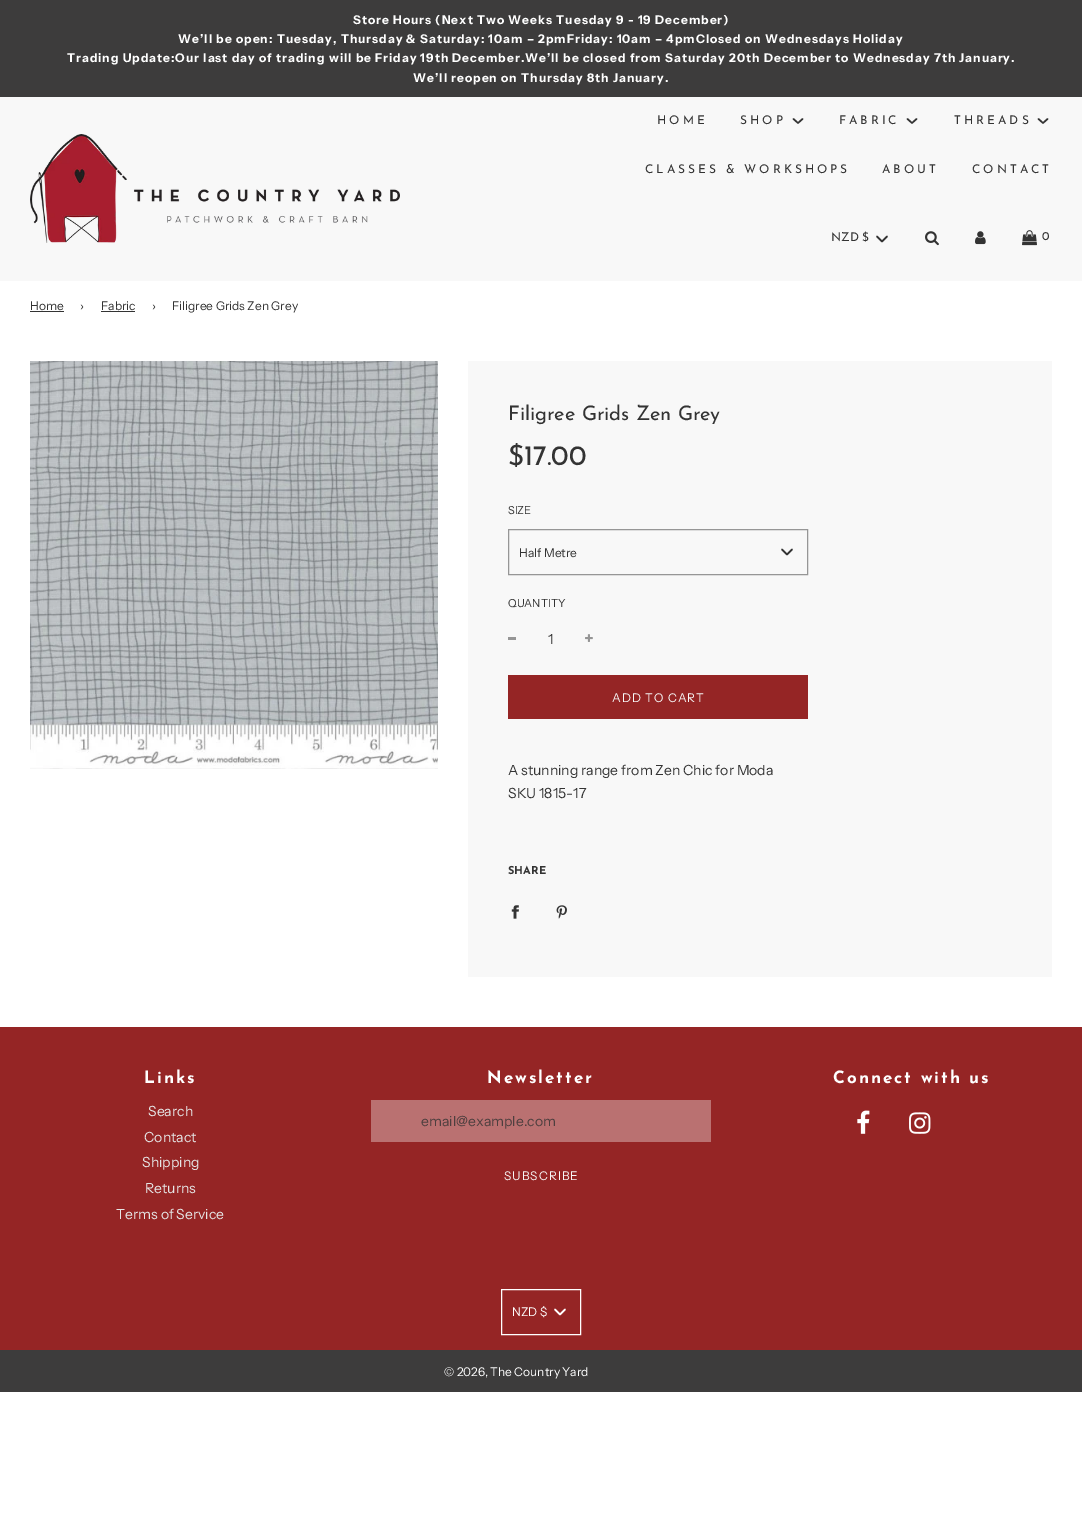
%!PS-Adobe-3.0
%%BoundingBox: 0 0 1082 1520
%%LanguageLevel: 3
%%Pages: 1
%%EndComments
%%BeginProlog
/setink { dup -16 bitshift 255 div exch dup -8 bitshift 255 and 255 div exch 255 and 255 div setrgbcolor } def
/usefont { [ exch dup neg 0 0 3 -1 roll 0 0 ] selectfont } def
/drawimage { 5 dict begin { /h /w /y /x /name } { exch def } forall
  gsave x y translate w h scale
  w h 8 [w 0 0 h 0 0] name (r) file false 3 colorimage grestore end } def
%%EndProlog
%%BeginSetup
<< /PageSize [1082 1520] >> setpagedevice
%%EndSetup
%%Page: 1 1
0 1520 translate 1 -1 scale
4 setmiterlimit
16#FFFFFF setink
0 0 1082 1520 rectfill
16#3D3C3C setink
0 0 1082 97 rectfill
/InstrumentSans-Bold 12 usefont
16#FFFFFF setink
353 24 moveto 1 0 (Store Hours \(Next Two Weeks Tuesday 9 - 19 December\)) ashow
178 43 moveto 1 0 (We’ll be open: Tuesday, Thursday & Saturday: 10am – 2pmFriday: 10am – 4pmClosed on Wednesdays Holiday) ashow
67 62 moveto 1 0 (Trading Update:Our last day of trading will be Friday 19th December.We’ll be closed from Saturday 20th December to Wednesday 7th January.) ashow
413 82 moveto 1 0 (We’ll reopen on Thursday 8th January.) ashow
16#F8F8F8 setink
0 97 1082 184 rectfill
(img1.raw) 30 134 370 109 drawimage
/JosefinSans-Regular 12 usefont
16#333333 setink
657 124 moveto 3 0 (HOME) ashow
740 124 moveto 3 0 (SHOP) ashow
1.5 setlinewidth
1 setlinecap
1 setlinejoin
793.5 119 moveto 798 123 lineto 802.5 119 lineto stroke
839 124 moveto 3 0 (FABRIC) ashow
907.5 119 moveto 912 123 lineto 916.5 119 lineto stroke
954 124 moveto 3 0 (THREADS) ashow
1038.5 119 moveto 1043 123 lineto 1047.5 119 lineto stroke
645 173 moveto 3 0 (CLASSES & WORKSHOPS) ashow
882 173 moveto 3 0 (ABOUT) ashow
972 173 moveto 3 0 (CONTACT) ashow
831 241 moveto (NZD $) show
1.7 setlinewidth
877 236.5 moveto 882 241.5 lineto 887 236.5 lineto stroke
(img2.raw) 925 231 14 15 drawimage
(img3.raw) 975 231 11 14 drawimage
(img4.raw) 1022 230 15 16 drawimage
1042 240 moveto (0) show
/InstrumentSans-Regular 12 usefont
30 310 moveto (Home) show
30 311 34 1 rectfill
80 310 moveto (›) show
101 310 moveto (Fabric) show
101 311 34 1 rectfill
152 310 moveto (›) show
172 310 moveto (Filigree Grids Zen Grey) show
(img5.raw) 30 361 408 408 drawimage
16#F8F8F8 setink
468 361 584 616 rectfill
/JosefinSans-Regular 20 usefont
16#333333 setink
508 420 moveto (Filigree Grids Zen Grey) show
/JosefinSans-Regular 28 usefont
508 465 moveto ($17.00) show
/InstrumentSans-Regular 11 usefont
508 514 moveto (SIZE) show
16#969696 setink
1 setlinewidth
0 setlinecap
0 setlinejoin
508.5 529.5 299 45 rectstroke
/InstrumentSans-Regular 12 usefont
16#333333 setink
519 557 moveto (Half Metre) show
1.7 setlinewidth
1 setlinecap
1 setlinejoin
782 549.5 moveto 787 554.5 lineto 792 549.5 lineto stroke
/InstrumentSans-Regular 11 usefont
508 607 moveto (QUANTITY) show
16#969696 setink
508 637 8 3 rectfill
/InstrumentSans-Regular 14 usefont
16#333333 setink
548 644 moveto (1) show
(img6.raw) 585 634 8 8 drawimage
16#952525 setink
508 675 300 44 rectfill
/InstrumentSans-Regular 12 usefont
16#F8F8F8 setink
612 702 moveto 1 0 (ADD TO CART) ashow
/InstrumentSans-Regular 14 usefont
16#333333 setink
508 775 moveto (A stunning range from Zen Chic for Moda) show
508 798 moveto (SKU 1815-17) show
/JosefinSans-Bold 11 usefont
508 874 moveto (SHARE) show
(img7.raw) 511 905 8 14 drawimage
(img8.raw) 556 905 11 14 drawimage
16#952525 setink
0 1027 1082 323 rectfill
/JosefinSans-Bold 17 usefont
16#FFFFFF setink
144 1083 moveto 2 0 (Links) ashow
/InstrumentSans-Regular 14 usefont
16#E6E6E6 setink
[
    [(Search) 148 1116]
    [(Contact) 144 1142]
    [(Shipping) 142 1167]
    [(Returns) 145 1193]
    [(Terms of Service) 116 1219]
] { aload pop moveto show } forall
/JosefinSans-Bold 17 usefont
16#FFFFFF setink
487 1083 moveto 2 0 (Newsletter) ashow
16#BA7171 setink
371 1100 340 42 rectfill
/InstrumentSans-Regular 14 usefont
16#4E3F3F setink
421 1126 moveto (email@example.com) show
/InstrumentSans-Regular 12 usefont
16#F8F8F8 setink
504 1180 moveto 1 0 (SUBSCRIBE) ashow
/JosefinSans-Bold 17 usefont
16#FFFFFF setink
833 1083 moveto 2 0 (Connect with us) ashow
(img9.raw) 857 1110 13 24 drawimage
(img10.raw) 909 1112 22 22 drawimage
1 setlinewidth
0 setlinecap
0 setlinejoin
501.5 1289.5 79 45 rectstroke
/InstrumentSans-Regular 12 usefont
512 1316 moveto (NZD $) show
1.7 setlinewidth
1 setlinecap
1 setlinejoin
555 1309.5 moveto 560 1314.5 lineto 565 1309.5 lineto stroke
16#3D3C3C setink
0 1350 1082 42 rectfill
16#FFFFFF setink
444 1376 moveto (© 2026, The Country Yard) show
showpage
%%EOF
